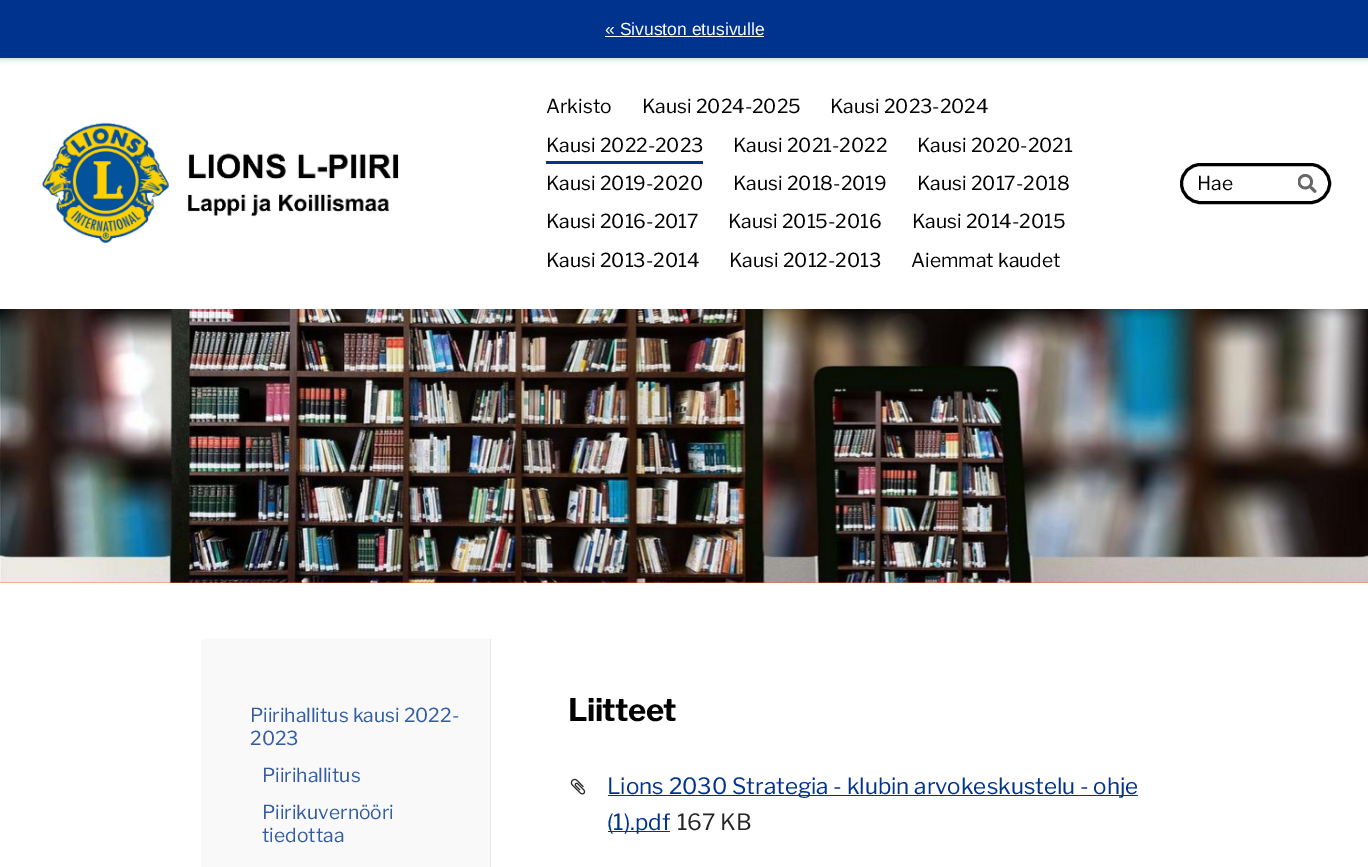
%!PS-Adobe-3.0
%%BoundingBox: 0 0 1368 867
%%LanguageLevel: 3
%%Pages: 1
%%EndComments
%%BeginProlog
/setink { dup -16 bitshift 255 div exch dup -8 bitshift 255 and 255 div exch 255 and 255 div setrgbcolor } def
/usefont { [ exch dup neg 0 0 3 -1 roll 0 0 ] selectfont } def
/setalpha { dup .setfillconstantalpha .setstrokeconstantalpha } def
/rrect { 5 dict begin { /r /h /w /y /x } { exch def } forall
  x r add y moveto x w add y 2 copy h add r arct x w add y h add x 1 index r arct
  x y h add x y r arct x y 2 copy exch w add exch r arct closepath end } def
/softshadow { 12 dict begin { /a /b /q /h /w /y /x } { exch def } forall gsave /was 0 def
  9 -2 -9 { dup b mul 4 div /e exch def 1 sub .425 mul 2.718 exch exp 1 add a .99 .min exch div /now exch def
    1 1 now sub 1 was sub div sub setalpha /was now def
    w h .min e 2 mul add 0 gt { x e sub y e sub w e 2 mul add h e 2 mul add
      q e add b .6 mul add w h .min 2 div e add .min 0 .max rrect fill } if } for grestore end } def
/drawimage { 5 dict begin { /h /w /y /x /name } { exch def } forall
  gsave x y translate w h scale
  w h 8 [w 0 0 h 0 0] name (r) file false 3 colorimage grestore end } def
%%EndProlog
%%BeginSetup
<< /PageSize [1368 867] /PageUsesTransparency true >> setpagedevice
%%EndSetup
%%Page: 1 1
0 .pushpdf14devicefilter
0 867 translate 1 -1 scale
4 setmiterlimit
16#FFFFFF setink
0 0 1368 867 rectfill
16#3B4A4A setink
0 1 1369 58 0 3 0.3 softshadow
16#00338D setink
0 0 1368 58 rectfill
/LiberationSans-Regular 17.5 usefont
16#FFFFFF setink
605 35 moveto (« Sivuston etusivulle) show
605 36 159 1 rectfill
16#FF5B35 setink
0 582 1368 1 rectfill
(img1.raw) 0 309 1368 274 drawimage
(img2.raw) 42 122 357 122 drawimage
/LibreFranklin-Thin 19.25 usefont
16#000000 setink
[
    [(Arkisto) 546 113]
    [(Kausi 2024-2025) 642 113]
    [(Kausi 2023-2024) 830 113]
    [(Kausi 2022-2023) 546 152]
] { aload pop moveto show } forall
16#00338D setink
546 161 157 3 rectfill
16#000000 setink
[
    [(Kausi 2021-2022) 733 152]
    [(Kausi 2020-2021) 917 152]
    [(Kausi 2019-2020) 546 190]
    [(Kausi 2018-2019) 733 190]
    [(Kausi 2017-2018) 917 190]
    [(Kausi 2016-2017) 546 228]
    [(Kausi 2015-2016) 728 228]
    [(Kausi 2014-2015) 912 228]
    [(Kausi 2013-2014) 546 267]
    [(Kausi 2012-2013) 729 267]
    [(Aiemmat kaudet) 911 267]
] { aload pop moveto show } forall
3 setlinewidth
1181.5 164.5 148 38 19 rrect stroke
1197 190 moveto (Hae) show
(img3.raw) 1298 174 19 19 drawimage
16#F9F9F9 setink
205 639 moveto 491 639 lineto 491 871 lineto 201 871 lineto 201 643 lineto 201 641 203 639 205 639 curveto closepath fill
16#E6E6E6 setink
490 639 1 228 rectfill
16#335CA4 setink
[
    [(Piirihallitus kausi 2022-) 250 722]
    [(2023) 250 745]
    [(Piirihallitus) 262 782]
    [(Piirikuvernööri) 262 819]
    [(tiedottaa) 262 842]
] { aload pop moveto show } forall
/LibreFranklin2-Thin 31 usefont
16#000000 setink
568 721 moveto -0.5 0 (Liitteet) ashow
(img4.raw) 570 778 16 17 drawimage
16#00338D setink
608 795 530 1 rectfill
/LibreFranklin-Thin 22.4 usefont
607 794 moveto (Lions 2030 Strategia - klubin arvokeskustelu - ohje) show
608 831 62 1 rectfill
607 830 moveto (\(1\).pdf) show
16#262626 setink
677 830 moveto (167 KB) show
.poppdf14devicefilter showpage
%%EOF
